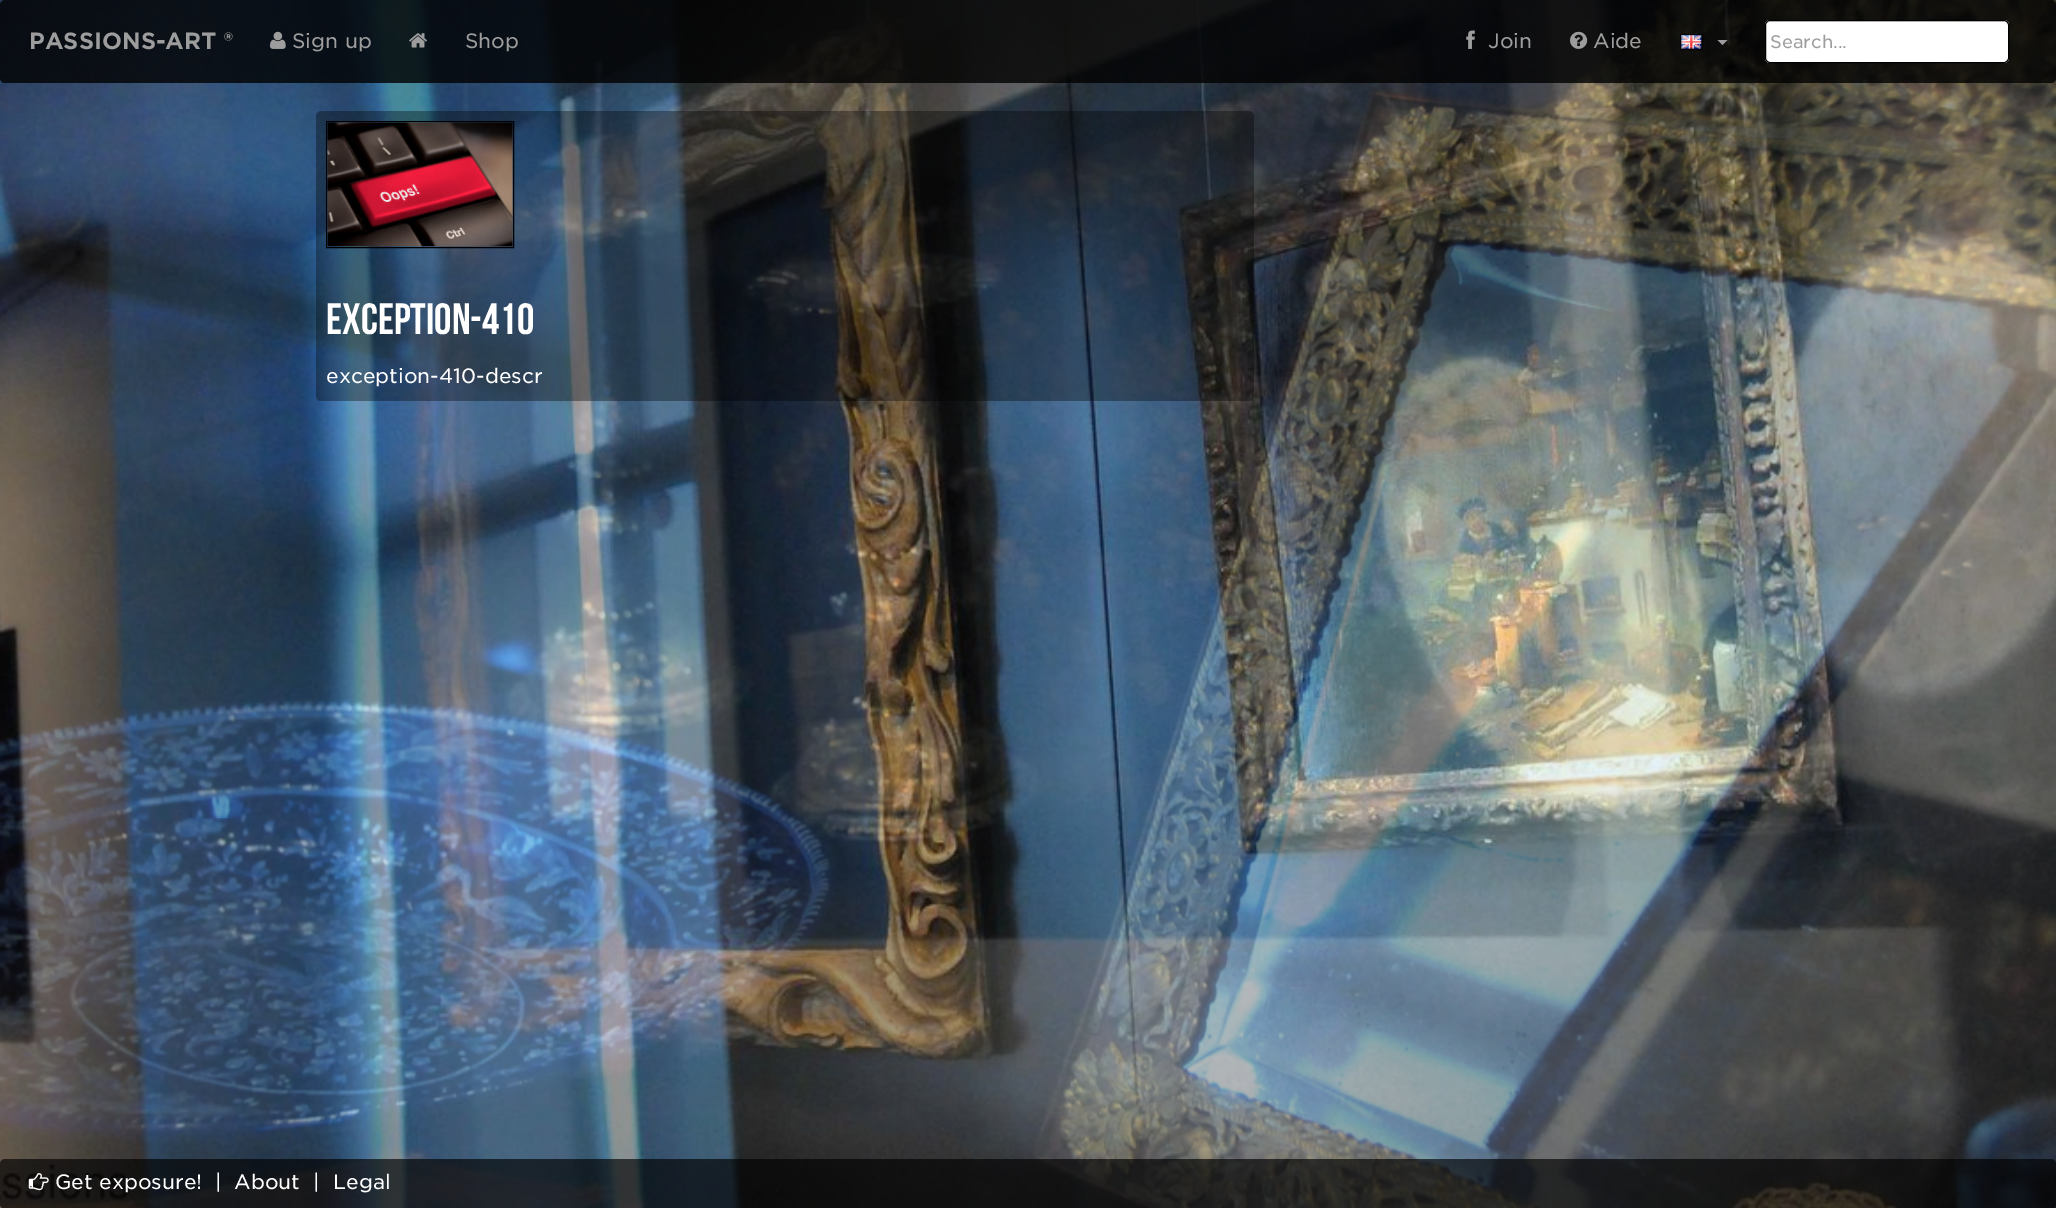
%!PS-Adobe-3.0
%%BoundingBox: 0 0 2056 1208
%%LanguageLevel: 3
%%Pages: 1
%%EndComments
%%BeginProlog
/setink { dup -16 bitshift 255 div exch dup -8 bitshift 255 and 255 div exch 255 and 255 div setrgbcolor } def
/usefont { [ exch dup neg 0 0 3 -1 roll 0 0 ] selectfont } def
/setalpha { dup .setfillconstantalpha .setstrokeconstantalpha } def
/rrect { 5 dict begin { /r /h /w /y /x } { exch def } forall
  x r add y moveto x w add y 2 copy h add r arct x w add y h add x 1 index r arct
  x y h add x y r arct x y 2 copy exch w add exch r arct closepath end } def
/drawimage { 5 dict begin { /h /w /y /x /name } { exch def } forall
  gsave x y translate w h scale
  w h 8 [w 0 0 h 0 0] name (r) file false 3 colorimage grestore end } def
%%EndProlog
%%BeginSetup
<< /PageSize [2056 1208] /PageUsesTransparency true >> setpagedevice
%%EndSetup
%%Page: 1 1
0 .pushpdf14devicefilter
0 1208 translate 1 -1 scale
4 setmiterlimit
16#FFFFFF setink
0 0 2056 1208 rectfill
(img1.raw) 0 0 2056 1208 drawimage
(img2.raw) 0 0 2056 1208 drawimage
0.8 setalpha
16#000000 setink
0 0 2056 83 5 rrect fill
/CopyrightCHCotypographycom-Regular 22.5 usefont
1 setalpha
16#9D9D9D setink
29 49 moveto (PASSIONS-ART ®) show
(img3.raw) 270 31 16 18 drawimage
/CopyrightCHCotypographycom-Light 20 usefont
292 48 moveto (Sign up) show
(img4.raw) 409 33 18 15 drawimage
465 48 moveto (Shop) show
(img5.raw) 1466 30 9 19 drawimage
1488 48 moveto (Join) show
(img6.raw) 1570 31 18 18 drawimage
1593 48 moveto (Aide) show
16#000000 setink
1680.5 34.5 22 15 rectstroke
(img7.raw) 1681 35 21 14 drawimage
16#9D9D9D setink
1717.5 40 moveto 1727.5 40 lineto 1722.5 45 lineto closepath fill
16#FFFFFF setink
1765 20 244 43 5 rrect fill
16#ECECEC setink
1770 22 moveto 2004 22 lineto 2006 22 2008 24 2008 26 curveto 2008 25 lineto 2008 23 2006 21 2004 21 curveto 1770 21 lineto 1768 21 1766 23 1766 25 curveto 1766 26 lineto 1766 24 1768 22 1770 22 curveto closepath fill
16#000000 setink
1765.5 20.5 243 42 4.5 rrect stroke
/CopyrightCHCotypographycom-Light 17.5 usefont
16#9D9D9D setink
1770 48 moveto (Search...) show
0.35 setalpha
16#000000 setink
316 111 938 290 5 rrect fill
1 setalpha
326.5 121.5 187 126 rectstroke
(img8.raw) 327 122 186 125 drawimage
/BebasNeue-Regular 43.75 usefont
16#FFFFFF setink
326 334 moveto (exception-410) show
/CopyrightCHCotypographycom-Light 20 usefont
326 383 moveto (exception-410-descr) show
0.65 setalpha
16#000000 setink
0 1159 2056 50 5 rrect fill
1 setalpha
(img9.raw) 28 1173 21 18 drawimage
16#FFFFFF setink
[
    [(Get exposure!) 55 1189]
    [(|) 215 1189]
    [(About) 234 1189]
    [(|) 313 1189]
    [(Legal) 333 1189]
] { aload pop moveto show } forall
.poppdf14devicefilter showpage
%%EOF
